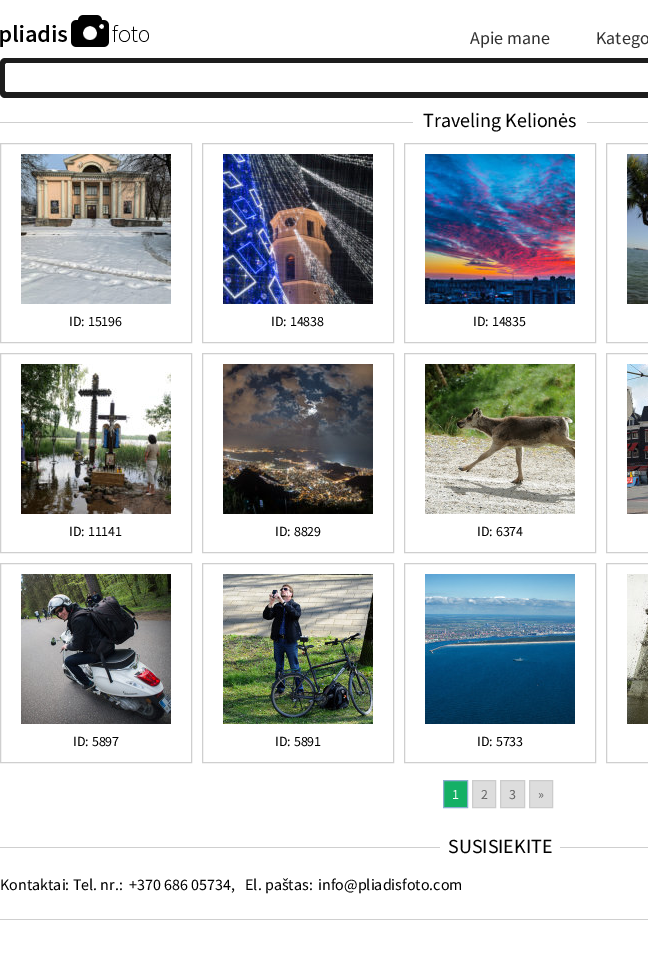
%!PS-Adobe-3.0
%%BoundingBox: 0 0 648 959
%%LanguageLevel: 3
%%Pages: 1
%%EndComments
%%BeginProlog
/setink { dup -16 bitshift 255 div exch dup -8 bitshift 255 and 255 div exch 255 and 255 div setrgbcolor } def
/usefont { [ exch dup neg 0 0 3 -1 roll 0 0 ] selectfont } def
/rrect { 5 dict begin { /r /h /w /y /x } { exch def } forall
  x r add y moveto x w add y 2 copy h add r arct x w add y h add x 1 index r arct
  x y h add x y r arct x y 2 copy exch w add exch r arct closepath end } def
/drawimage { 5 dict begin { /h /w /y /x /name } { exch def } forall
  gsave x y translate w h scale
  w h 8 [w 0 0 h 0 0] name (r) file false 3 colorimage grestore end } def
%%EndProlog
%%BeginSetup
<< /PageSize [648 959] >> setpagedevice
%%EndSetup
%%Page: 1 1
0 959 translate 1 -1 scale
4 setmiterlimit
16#FFFFFF setink
0 0 648 959 rectfill
(img1.raw) 0 15 149 32 drawimage
/SourceSansPro-Regular 18 usefont
16#313131 setink
470 44 moveto (Apie mane) show
596 44 moveto (Katego) show
16#1D1D1D setink
0 58 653 40 5 rrect fill
16#FFFFFF setink
8 63 moveto 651 63 lineto 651 92 lineto 8 92 lineto 6.5 92 5 90.5 5 89 curveto 5 66 lineto 5 64.5 6.5 63 8 63 curveto closepath fill
8 63 moveto 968 63 lineto 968 92 lineto 8 92 lineto 6 92 5 91 5 89 curveto 5 66 lineto 5 64 6 63 8 63 curveto closepath 8 64 moveto 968 64 lineto 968 92 lineto 8 92 lineto 7 92 6 91 6 89 curveto 6 66 lineto 6 65 7 64 8 64 curveto closepath eofill
16#CFCFCF setink
0 122 648 1 rectfill
16#FFFFFF setink
413 122 174 1 rectfill
/SourceSansPro-Regular 20 usefont
16#000000 setink
423 127 moveto (Traveling Kelionės) show
16#CFCFCF setink
0.5 143.5 191 199 rectstroke
(img2.raw) 21 154 150 150 drawimage
/SourceSansPro-Regular 14 usefont
16#000000 setink
69 326 moveto (ID: 15196) show
16#CFCFCF setink
202.5 143.5 191 199 rectstroke
(img3.raw) 223 154 150 150 drawimage
16#000000 setink
271 326 moveto (ID: 14838) show
16#CFCFCF setink
404.5 143.5 191 199 rectstroke
(img4.raw) 425 154 150 150 drawimage
16#000000 setink
473 326 moveto (ID: 14835) show
16#CFCFCF setink
606.5 143.5 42 199 rectstroke
(img5.raw) 627 154 21 150 drawimage
0.5 353.5 191 199 rectstroke
(img6.raw) 21 364 150 150 drawimage
16#000000 setink
69 536 moveto (ID: 11141) show
16#CFCFCF setink
202.5 353.5 191 199 rectstroke
(img7.raw) 223 364 150 150 drawimage
16#000000 setink
275 536 moveto (ID: 8829) show
16#CFCFCF setink
404.5 353.5 191 199 rectstroke
(img8.raw) 425 364 150 150 drawimage
16#000000 setink
477 536 moveto (ID: 6374) show
16#CFCFCF setink
606.5 353.5 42 199 rectstroke
(img9.raw) 627 364 21 150 drawimage
0.5 563.5 191 199 rectstroke
(img10.raw) 21 574 150 150 drawimage
16#000000 setink
73 746 moveto (ID: 5897) show
16#CFCFCF setink
202.5 563.5 191 199 rectstroke
(img11.raw) 223 574 150 150 drawimage
16#000000 setink
275 746 moveto (ID: 5891) show
16#CFCFCF setink
404.5 563.5 191 199 rectstroke
(img12.raw) 425 574 150 150 drawimage
16#000000 setink
477 746 moveto (ID: 5733) show
16#CFCFCF setink
606.5 563.5 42 199 rectstroke
(img13.raw) 627 574 21 150 drawimage
16#14B066 setink
443.5 780.5 moveto 467.5 780.5 lineto 467.5 807.5 lineto 443.5 807.5 lineto closepath gsave fill grestore
16#89ADCF setink
stroke
16#FFFFFF setink
452 799 moveto (1) show
16#DDDDDD setink
472.5 780.5 moveto 495.5 780.5 lineto 495.5 807.5 lineto 472.5 807.5 lineto closepath gsave fill grestore
16#CCCCCC setink
stroke
16#666666 setink
481 799 moveto (2) show
16#DDDDDD setink
500.5 780.5 moveto 524.5 780.5 lineto 524.5 807.5 lineto 500.5 807.5 lineto closepath gsave fill grestore
16#CCCCCC setink
stroke
16#666666 setink
509 799 moveto (3) show
16#DDDDDD setink
529.5 780.5 moveto 552.5 780.5 lineto 552.5 807.5 lineto 529.5 807.5 lineto closepath gsave fill grestore
16#CCCCCC setink
stroke
16#666666 setink
538 799 moveto (») show
16#CFCFCF setink
0 847 440 1 rectfill
/SourceSansPro-Regular 20 usefont
16#000000 setink
448 853 moveto (SUSISIEKITE) show
16#CFCFCF setink
560 847 88 1 rectfill
0 919 648 1 rectfill
/SourceSansPro-Regular 16 usefont
16#000000 setink
[
    [(Kontaktai: Tel. nr.:  +370 686 05734,) 0 890]
    [(El. paštas:) 245 890]
    [(info@pliadisfoto.com) 318 890]
] { aload pop moveto show } forall
showpage
%%EOF
